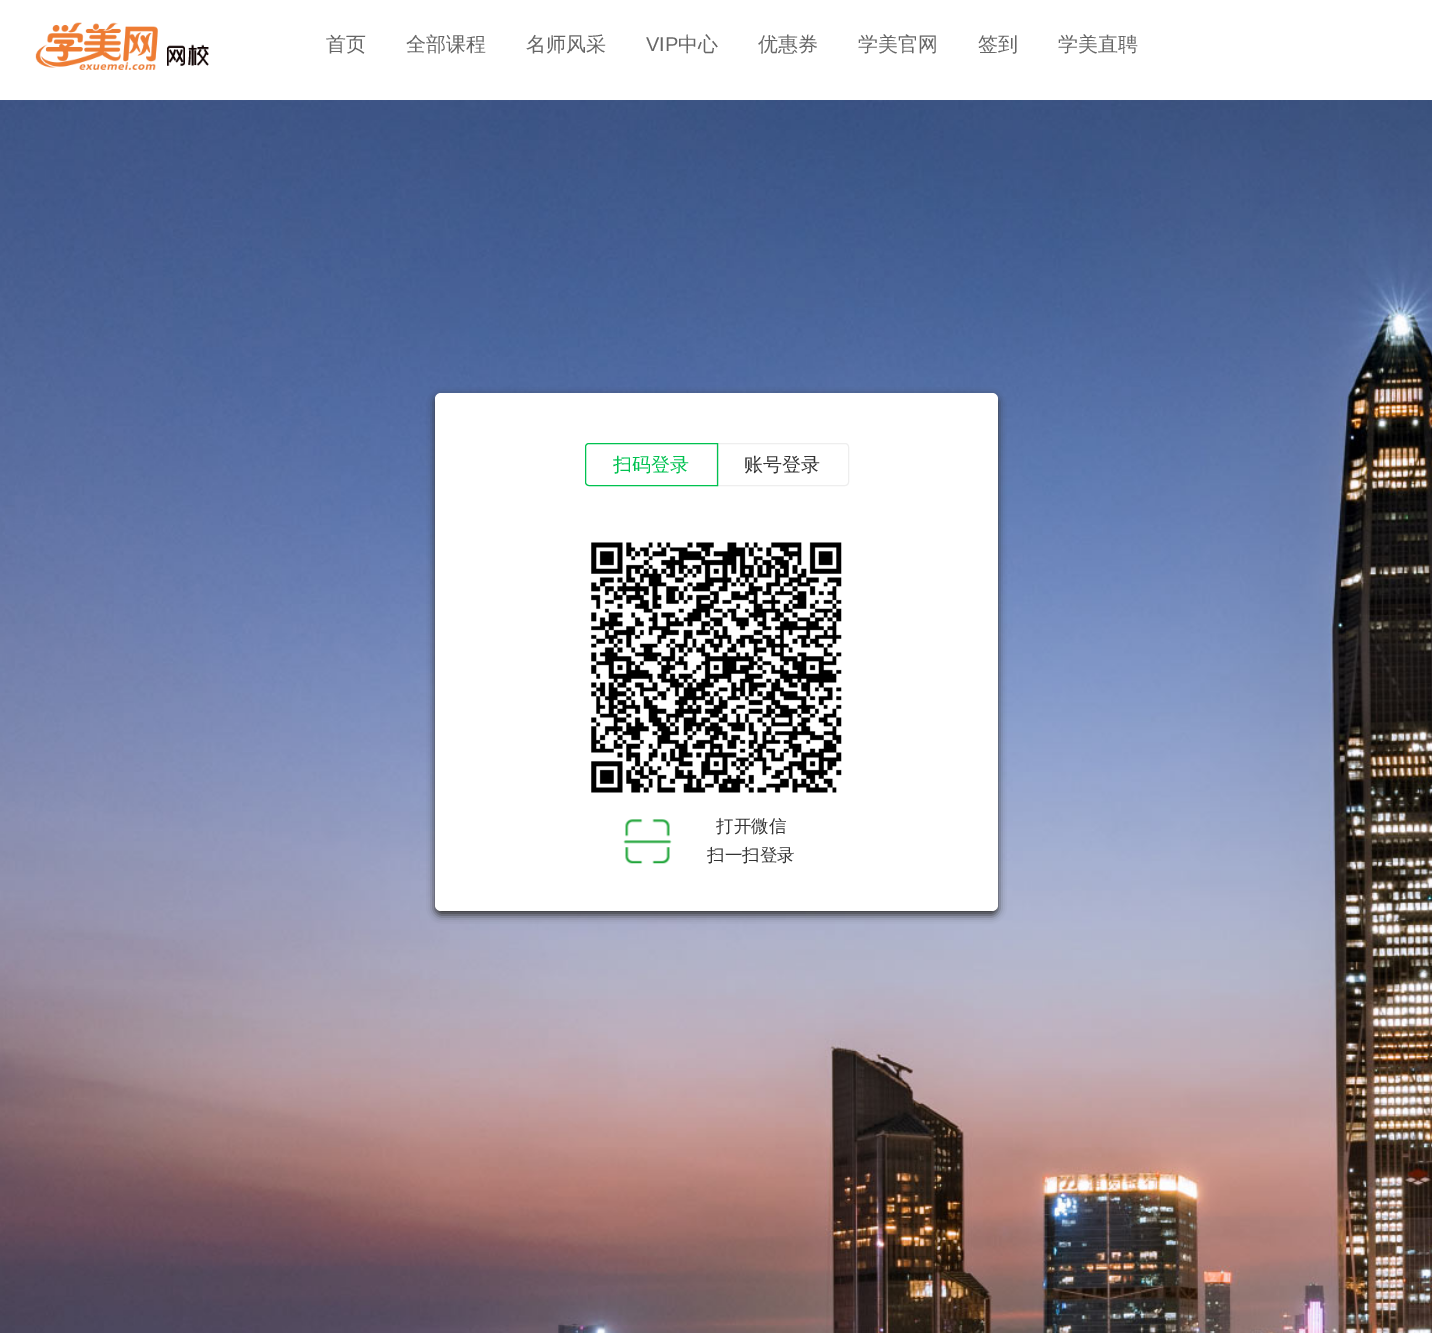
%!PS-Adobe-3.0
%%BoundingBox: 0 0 1432 1333
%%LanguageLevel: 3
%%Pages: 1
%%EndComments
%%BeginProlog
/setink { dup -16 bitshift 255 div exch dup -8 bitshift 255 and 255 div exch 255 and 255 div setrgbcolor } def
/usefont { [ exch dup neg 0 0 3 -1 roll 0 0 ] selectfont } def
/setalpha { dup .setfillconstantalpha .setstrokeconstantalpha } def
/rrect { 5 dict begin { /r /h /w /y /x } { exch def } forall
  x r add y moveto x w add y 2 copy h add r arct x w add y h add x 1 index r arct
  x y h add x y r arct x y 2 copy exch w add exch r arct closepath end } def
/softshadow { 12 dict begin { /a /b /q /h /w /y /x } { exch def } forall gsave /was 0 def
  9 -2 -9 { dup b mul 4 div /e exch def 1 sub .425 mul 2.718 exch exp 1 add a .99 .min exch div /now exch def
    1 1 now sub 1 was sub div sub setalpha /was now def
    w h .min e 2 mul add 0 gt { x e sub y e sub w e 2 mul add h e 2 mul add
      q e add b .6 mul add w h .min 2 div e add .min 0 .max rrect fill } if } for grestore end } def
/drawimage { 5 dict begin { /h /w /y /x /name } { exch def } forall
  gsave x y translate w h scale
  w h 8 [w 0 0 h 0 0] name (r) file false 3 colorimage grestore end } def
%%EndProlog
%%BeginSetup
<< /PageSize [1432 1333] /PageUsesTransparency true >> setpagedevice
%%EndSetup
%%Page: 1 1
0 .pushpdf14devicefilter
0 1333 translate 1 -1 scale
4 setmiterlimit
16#FFFFFF setink
0 0 1432 1333 rectfill
(img1.raw) 35 22 174 48 drawimage
/WenQuanYiZenHei-Medium 20 usefont
16#666666 setink
[
    [(首页) 326 51]
    [(全部课程) 406 51]
    [(名师风采) 526 51]
] { aload pop moveto show } forall
/LiberationSans-Regular 20 usefont
646 51 moveto (VIP) show
/WenQuanYiZenHei-Medium 20 usefont
[
    [(中心) 678 51]
    [(优惠券) 758 51]
    [(学美官网) 858 51]
    [(签到) 978 51]
    [(学美直聘) 1058 51]
] { aload pop moveto show } forall
(img2.raw) 0 100 1432 1233 drawimage
16#333333 setink
435 396 563 519 6 4 1 softshadow
16#FFFFFF setink
435 393 563 518 6 rrect fill
16#EEEEEE setink
716.5 443.5 moveto 845 443.5 lineto 847 443.5 848.5 445 848.5 447 curveto 848.5 482 lineto 848.5 484 847 485.5 845 485.5 curveto 716.5 485.5 lineto closepath stroke
16#00C250 setink
589 443.5 moveto 717.5 443.5 lineto 717.5 485.5 lineto 589 485.5 lineto 587 485.5 585.5 484 585.5 482 curveto 585.5 447 lineto 585.5 445 587 443.5 589 443.5 curveto closepath stroke
/WenQuanYiZenHei-Medium 19 usefont
613 471 moveto (扫码登录) show
16#333333 setink
744 471 moveto (账号登录) show
(img3.raw) 591 542 251 251 drawimage
(img4.raw) 623 819 49 45 drawimage
/WenQuanYiZenHei-Medium 17.5 usefont
716 832 moveto (打开微信) show
707 861 moveto (扫一扫登录) show
.poppdf14devicefilter showpage
%%EOF
